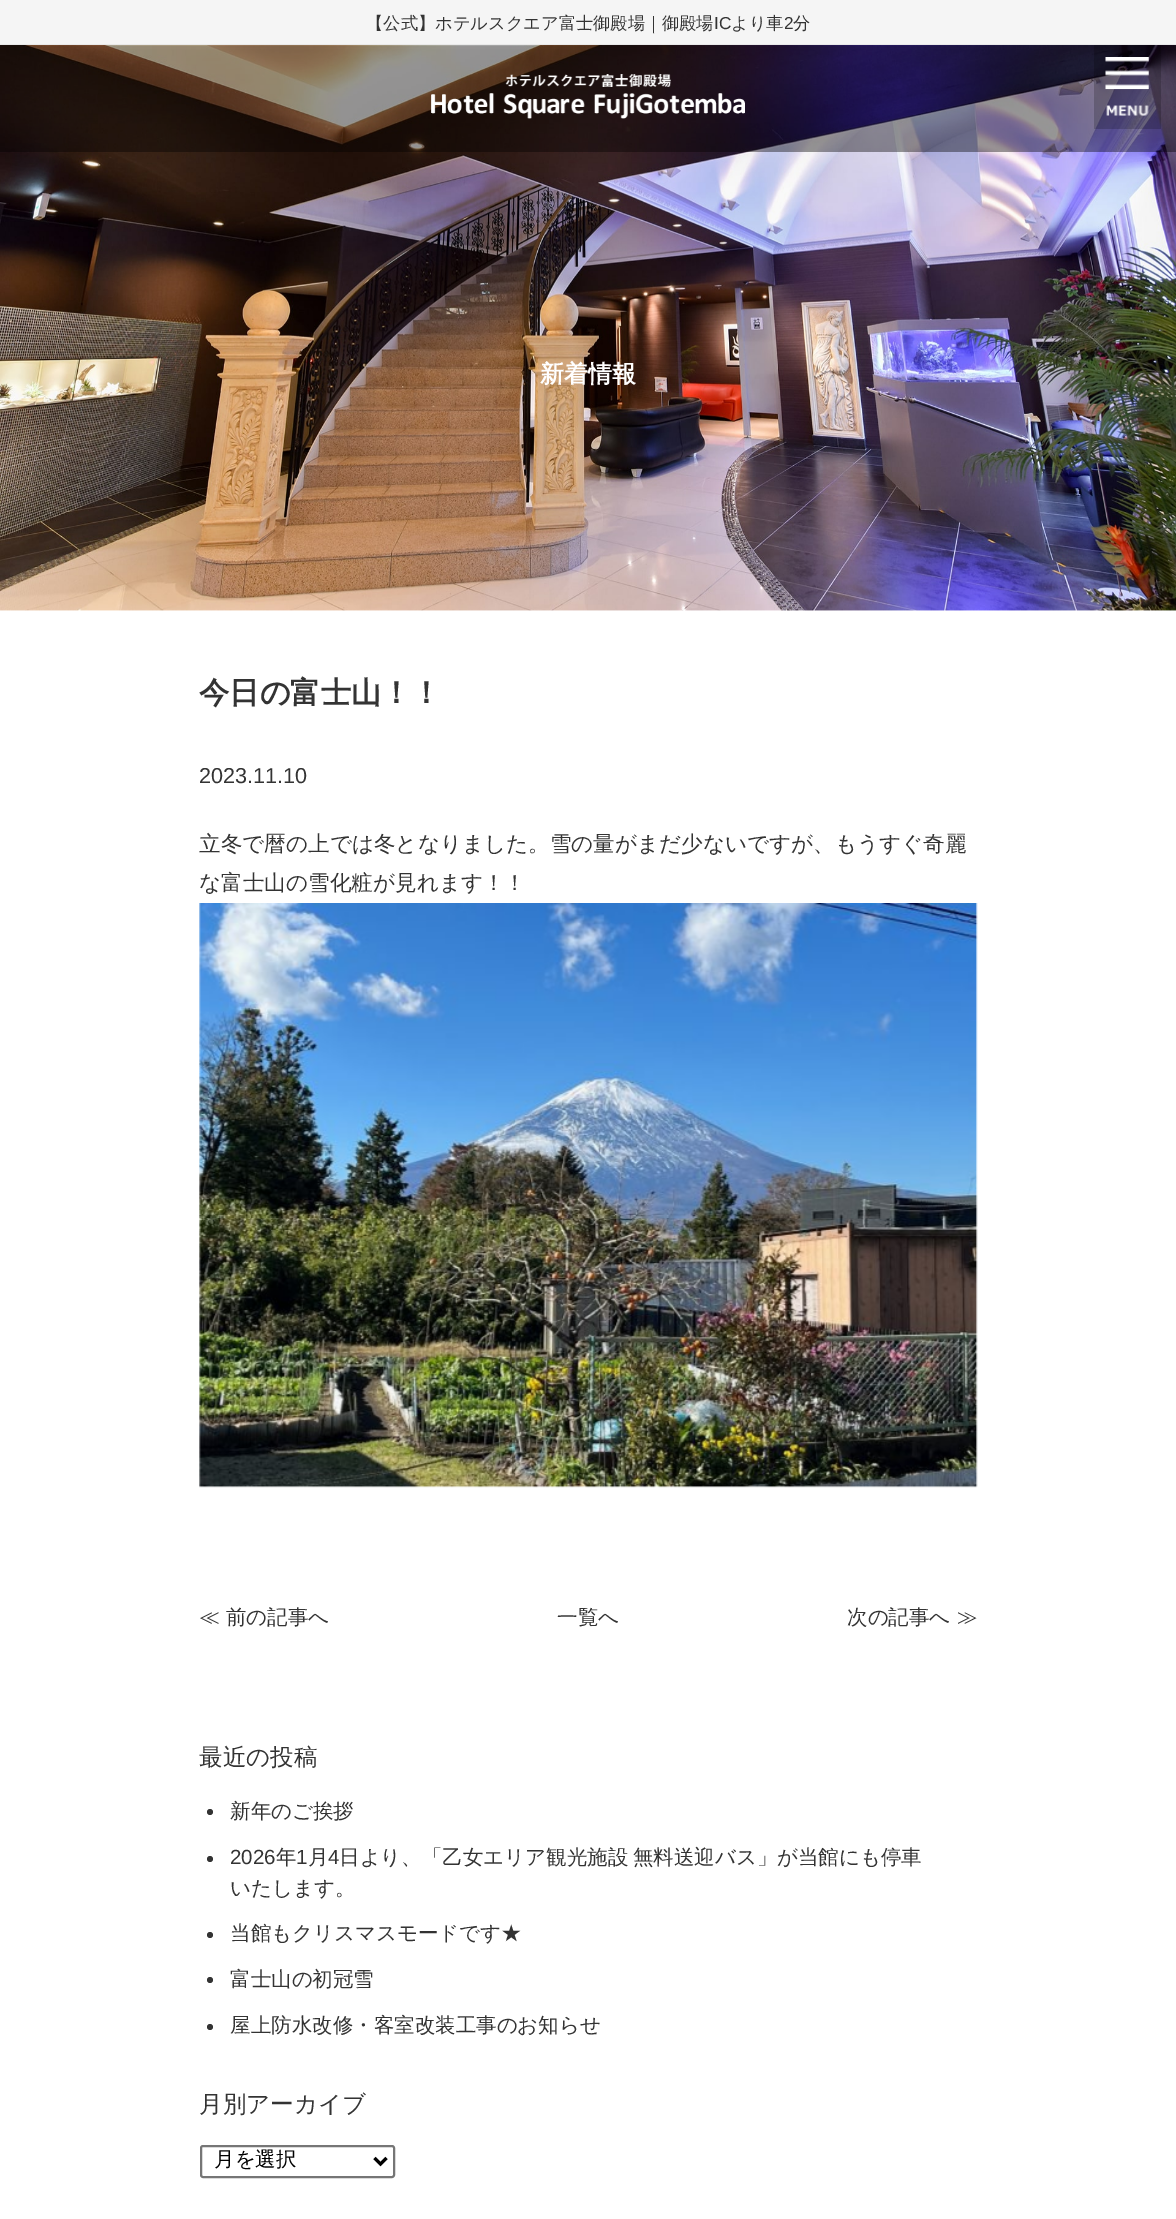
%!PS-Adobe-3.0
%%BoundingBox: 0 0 1176 2219
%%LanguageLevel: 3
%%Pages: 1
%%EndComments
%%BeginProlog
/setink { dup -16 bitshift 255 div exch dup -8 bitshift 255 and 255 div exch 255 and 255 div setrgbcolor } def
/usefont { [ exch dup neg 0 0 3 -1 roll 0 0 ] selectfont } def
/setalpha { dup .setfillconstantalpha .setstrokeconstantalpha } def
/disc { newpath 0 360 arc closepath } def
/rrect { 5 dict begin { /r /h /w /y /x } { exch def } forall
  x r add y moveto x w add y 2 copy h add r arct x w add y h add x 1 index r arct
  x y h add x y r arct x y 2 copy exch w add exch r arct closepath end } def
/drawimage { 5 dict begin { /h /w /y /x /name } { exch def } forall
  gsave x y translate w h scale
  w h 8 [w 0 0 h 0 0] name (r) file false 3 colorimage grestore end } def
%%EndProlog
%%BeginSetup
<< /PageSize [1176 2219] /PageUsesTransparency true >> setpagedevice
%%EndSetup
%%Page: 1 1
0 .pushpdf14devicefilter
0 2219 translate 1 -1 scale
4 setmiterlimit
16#FFFFFF setink
0 0 1176 2219 rectfill
16#F5F5F5 setink
0 0 1176 45 rectfill
/WenQuanYiZenHei-Medium 17.25 usefont
16#333333 setink
366 29 moveto (【公式】ホテルスクエア富士御殿場｜御殿場) show
/LiberationSans-Regular 17.25 usefont
714 29 moveto (IC) show
/WenQuanYiZenHei-Medium 17.25 usefont
731 29 moveto (より車) show
/LiberationSans-Regular 17.25 usefont
784 29 moveto (2) show
/WenQuanYiZenHei-Medium 17.25 usefont
793 29 moveto (分) show
(img4.raw) 0 45 1176 566 drawimage
(img1.raw) 0 44 1176 108 drawimage
(img2.raw) 431 74 314 45 drawimage
0.2 setalpha
16#000000 setink
1094 45 67 84 rectfill
1 setalpha
(img3.raw) 1105 57 44 59 drawimage
/WenQuanYiZenHei-Bold 24 usefont
16#FFFFFF setink
540 382 moveto (新着情報) show
/WenQuanYiZenHei-Bold 30.25 usefont
16#333333 setink
199 703 moveto (今日の富士山！！) show
/LiberationSans-Regular 21.6 usefont
199 783 moveto (2023.11.10) show
/WenQuanYiZenHei-Medium 21.6 usefont
199 851 moveto (立冬で暦の上では冬となりました。雪の量がまだ少ないですが、もうすぐ奇麗) show
199 890 moveto (な富士山の雪化粧が見れます！！) show
(img5.raw) 199 903 779 585 drawimage
/WenQuanYiZenHei-Medium 20.5 usefont
[
    [(≪ 前の記事へ) 199 1624]
    [(一覧へ) 557 1624]
    [(次の記事へ ≫) 847 1624]
] { aload pop moveto show } forall
/WenQuanYiZenHei-Medium 23.5 usefont
199 1765 moveto (最近の投稿) show
210 1812 3 disc fill
/WenQuanYiZenHei-Medium 20.5 usefont
230 1818 moveto (新年のご挨拶) show
210 1859 3 disc fill
/LiberationSans-Regular 20.5 usefont
230 1864 moveto (2026) show
/WenQuanYiZenHei-Medium 20.5 usefont
276 1864 moveto (年) show
/LiberationSans-Regular 20.5 usefont
296 1864 moveto (1) show
/WenQuanYiZenHei-Medium 20.5 usefont
308 1864 moveto (月) show
/LiberationSans-Regular 20.5 usefont
328 1864 moveto (4) show
/WenQuanYiZenHei-Medium 20.5 usefont
339 1864 moveto -2 0 32 (日より、「乙女エリア観光施設 無料送迎バス」が当館にも停車) widthshow
230 1895 moveto (いたします。) show
210 1935 3 disc fill
230 1940 moveto (当館もクリスマスモードです★) show
210 1980 3 disc fill
230 1986 moveto (富士山の初冠雪) show
210 2027 3 disc fill
230 2032 moveto (屋上防水改修・客室改装工事のお知らせ) show
/WenQuanYiZenHei-Medium 23.5 usefont
199 2112 moveto (月別アーカイブ) show
16#767676 setink
2 setlinewidth
201 2146 193 31 2 rrect stroke
16#000000 setink
3 setlinewidth
374.5 2158 moveto 380.5 2164 lineto 386.5 2158 lineto stroke
/WenQuanYiZenHei-Medium 20.5 usefont
214 2166 moveto (月を選択) show
.poppdf14devicefilter showpage
%%EOF
